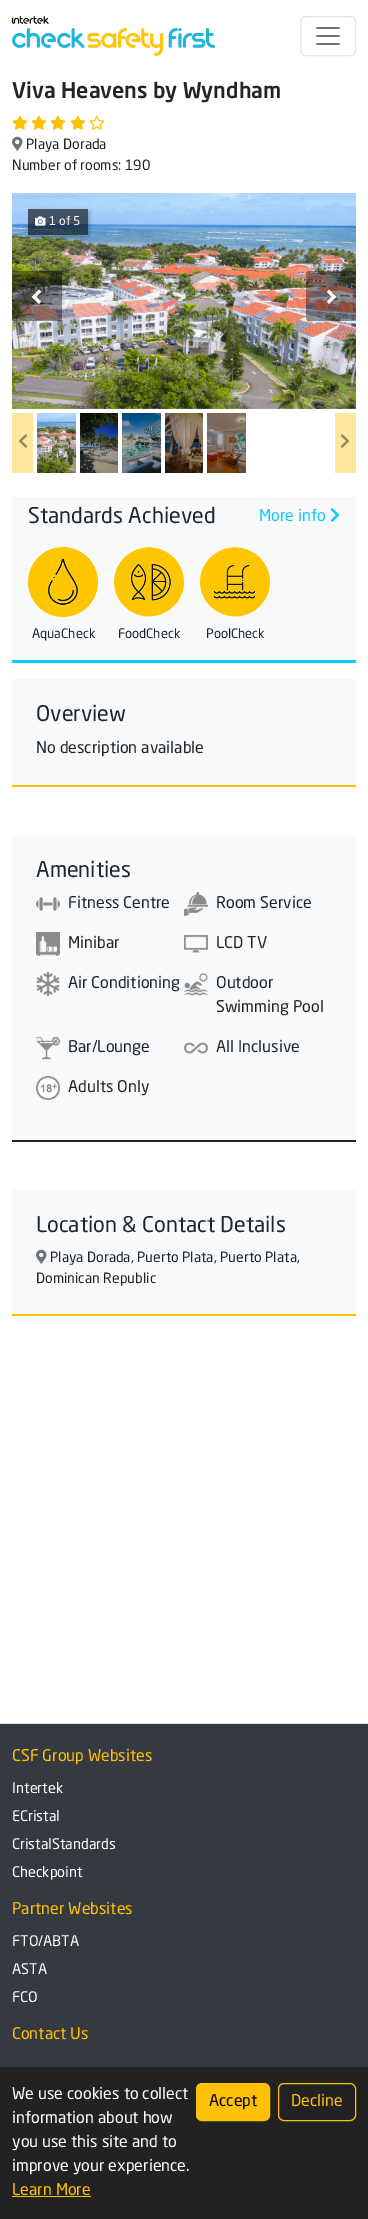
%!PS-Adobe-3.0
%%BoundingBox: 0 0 368 2219
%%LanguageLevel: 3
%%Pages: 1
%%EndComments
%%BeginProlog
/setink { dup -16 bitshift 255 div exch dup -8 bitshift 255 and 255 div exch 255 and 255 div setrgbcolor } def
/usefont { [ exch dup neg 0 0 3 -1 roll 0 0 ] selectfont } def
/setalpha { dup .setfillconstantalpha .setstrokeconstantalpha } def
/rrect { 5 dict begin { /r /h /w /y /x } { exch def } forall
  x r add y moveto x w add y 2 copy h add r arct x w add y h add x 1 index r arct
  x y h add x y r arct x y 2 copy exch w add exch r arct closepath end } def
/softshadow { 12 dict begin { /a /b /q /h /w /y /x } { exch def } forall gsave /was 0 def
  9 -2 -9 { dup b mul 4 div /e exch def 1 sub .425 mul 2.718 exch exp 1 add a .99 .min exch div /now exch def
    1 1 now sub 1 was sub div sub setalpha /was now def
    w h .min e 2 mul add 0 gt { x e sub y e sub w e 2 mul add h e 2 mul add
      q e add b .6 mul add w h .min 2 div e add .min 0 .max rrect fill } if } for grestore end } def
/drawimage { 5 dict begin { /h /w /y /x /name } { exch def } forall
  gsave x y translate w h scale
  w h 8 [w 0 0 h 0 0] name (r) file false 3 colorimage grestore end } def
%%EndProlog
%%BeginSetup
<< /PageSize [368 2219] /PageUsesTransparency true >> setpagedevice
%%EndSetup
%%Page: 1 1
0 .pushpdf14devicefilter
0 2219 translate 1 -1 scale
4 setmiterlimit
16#FFFFFF setink
0 0 368 2219 rectfill
(img1.raw) 12 16 203 40 drawimage
16#E6E6E6 setink
300.5 16.5 55 39 5.5 rrect stroke
(img2.raw) 316 27 24 18 drawimage
/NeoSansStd-Medium 21.5 usefont
16#212529 setink
12 98 moveto (Viva Heavens by Wyndham) show
(img3.raw) 12 115 16 15 drawimage
(img3.raw) 31 115 16 15 drawimage
(img3.raw) 50 115 16 15 drawimage
(img3.raw) 70 115 16 15 drawimage
(img4.raw) 89 115 16 15 drawimage
(img5.raw) 12 136 11 15 drawimage
/NeoSansStd-Regular 14 usefont
26 149 moveto (Playa Dorada) show
12 170 moveto (Number of rooms: 190) show
(img6.raw) 12 193 344 216 drawimage
gsave
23 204 moveto 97 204 lineto 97 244 lineto 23 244 lineto closepath 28 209 moveto 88 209 lineto 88 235 lineto 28 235 lineto closepath eoclip newpath
16#000000 setink
30 211 60 26 0 2 0.2 softshadow
grestore
0.6 setalpha
16#000000 setink
28 209 60 26 rectfill
1 setalpha
(img7.raw) 35 216 11 10 drawimage
/NeoSansStd-Regular 12 usefont
16#FFFFFF setink
49 225 moveto (1 of 5) show
0.4 setalpha
16#000000 setink
12 271 moveto 59 271 lineto 60.5 271 62 272.5 62 274 curveto 62 318 lineto 62 319.5 60.5 321 59 321 curveto 12 321 lineto closepath fill
1 setalpha
16#FFFFFF setink
34 294.5 moveto 41 301.5 lineto 39 304 lineto 32 297 lineto closepath fill
39 289.5 moveto 41 292 lineto 34 299 lineto 32 297 lineto closepath fill
0.4 setalpha
16#000000 setink
309 271 moveto 356 271 lineto 356 321 lineto 309 321 lineto 307.5 321 306 319.5 306 318 curveto 306 274 lineto 306 272.5 307.5 271 309 271 curveto closepath fill
1 setalpha
16#FFFFFF setink
327 292 moveto 329 289.5 lineto 336 297 lineto 334 299 lineto closepath fill
327 301.5 moveto 334 294.5 lineto 336 297 lineto 329 304 lineto closepath fill
16#FFE69C setink
12 413 21 60 rectfill
(img8.raw) 19 434 8 14 drawimage
(img9.raw) 37 413 39 60 drawimage
(img10.raw) 80 413 38 60 drawimage
(img11.raw) 122 413 39 60 drawimage
(img12.raw) 165 413 38 60 drawimage
(img13.raw) 207 413 39 60 drawimage
335 413 21 60 rectfill
(img14.raw) 341 434 8 14 drawimage
16#F8F9FA setink
12 497 344 163 rectfill
16#0DCAF0 setink
12 660 344 3 rectfill
/NeoSansStd-Regular 21.5 usefont
16#212529 setink
28 523 moveto (Standards Achieved) show
/NeoSansStd-Regular 16 usefont
16#0DCAF0 setink
259 521 moveto (More info) show
(img15.raw) 330 508 10 14 drawimage
(img16.raw) 28 547 70 70 drawimage
/NeoSansStd-Regular 13 usefont
16#212529 setink
32 638 moveto (AquaCheck) show
(img17.raw) 114 547 70 70 drawimage
118 638 moveto (FoodCheck) show
(img18.raw) 200 547 70 70 drawimage
206 638 moveto (PoolCheck) show
16#F8F9FA setink
12 679 344 106 rectfill
16#FFC107 setink
12 785 344 2 rectfill
/NeoSansStd-Regular 21.5 usefont
16#212529 setink
36 721 moveto (Overview) show
/NeoSansStd-Regular 16 usefont
36 753 moveto (No description available) show
16#F8F9FA setink
12 835 344 305 rectfill
16#212529 setink
12 1140 344 2 rectfill
/NeoSansStd-Regular 21.5 usefont
36 877 moveto (Amenities) show
(img19.raw) 36 897 24 14 drawimage
/NeoSansStd-Regular 16 usefont
68 908 moveto (Fitness Centre) show
(img20.raw) 184 892 24 24 drawimage
216 908 moveto (Room Service) show
(img21.raw) 36 932 24 24 drawimage
68 948 moveto (Minibar) show
(img22.raw) 184 935 24 18 drawimage
216 948 moveto (LCD TV) show
(img23.raw) 36 972 24 24 drawimage
68 988 moveto (Air Conditioning) show
(img24.raw) 184 973 24 23 drawimage
216 988 moveto (Outdoor) show
216 1012 moveto (Swimming Pool) show
(img25.raw) 36 1036 24 24 drawimage
68 1052 moveto (Bar/Lounge) show
(img26.raw) 184 1042 24 12 drawimage
216 1052 moveto (All Inclusive) show
(img27.raw) 36 1076 24 24 drawimage
68 1092 moveto (Adults Only) show
16#F8F9FA setink
12 1190 344 124 rectfill
16#FFC107 setink
12 1314 344 2 rectfill
/NeoSansStd-Regular 21.5 usefont
16#212529 setink
36 1232 moveto (Location & Contact Details) show
(img28.raw) 36 1249 11 15 drawimage
/NeoSansStd-Regular 14 usefont
50 1262 moveto (Playa Dorada, Puerto Plata, Puerto Plata,) show
36 1283 moveto (Dominican Republic) show
16#343A40 setink
0 1724 368 343 rectfill
16#DEE2E6 setink
0 1723 368 1 rectfill
/NeoSansStd-Regular 16 usefont
16#FFC107 setink
12 1761 moveto (CSF Group Websites) show
/NeoSansStd-Regular 14.5 usefont
16#FFFFFF setink
[
    [(Intertek) 12 1793]
    [(ECristal) 12 1821]
    [(CristalStandards) 12 1849]
    [(Checkpoint) 12 1877]
] { aload pop moveto show } forall
/NeoSansStd-Regular 16 usefont
16#FFC107 setink
12 1914 moveto (Partner Websites) show
/NeoSansStd-Regular 14.5 usefont
16#FFFFFF setink
[
    [(FTO/ABTA) 12 1946]
    [(ASTA) 12 1974]
    [(FCO) 12 2002]
] { aload pop moveto show } forall
/NeoSansStd-Regular 16 usefont
16#FFC107 setink
12 2039 moveto (Contact Us) show
16#000000 setink
0 2068 368 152 0 10 0.1 softshadow
16#222222 setink
0 2067 368 152 rectfill
16#FFFFFF setink
[
    [(We use cookies to collect) 12 2099]
    [(information about how) 12 2123]
    [(you use this site and to) 12 2147]
    [(improve your experience.) 12 2171]
] { aload pop moveto show } forall
16#FFC107 setink
12 2195 moveto (Learn More) show
12 2196 79 1 rectfill
196.5 2083.5 73 37 5.5 rrect gsave fill grestore
stroke
16#000000 setink
209 2106 moveto (Accept) show
16#FFC107 setink
278.5 2083.5 77 37 5.5 rrect stroke
291 2106 moveto (Decline) show
.poppdf14devicefilter showpage
%%EOF
